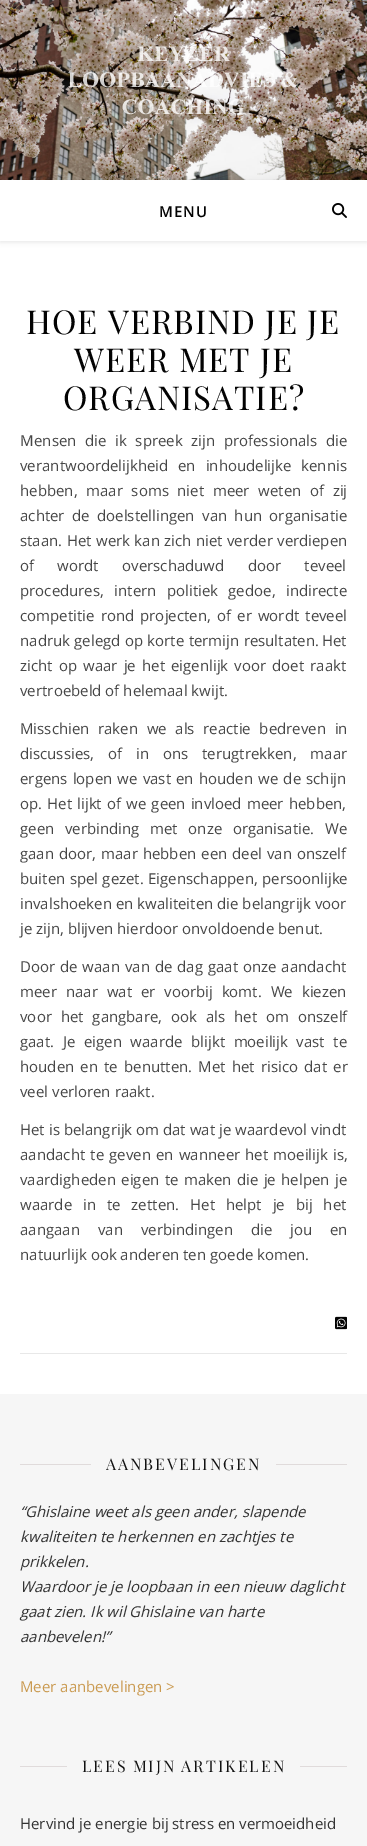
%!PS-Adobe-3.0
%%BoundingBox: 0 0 367 1846
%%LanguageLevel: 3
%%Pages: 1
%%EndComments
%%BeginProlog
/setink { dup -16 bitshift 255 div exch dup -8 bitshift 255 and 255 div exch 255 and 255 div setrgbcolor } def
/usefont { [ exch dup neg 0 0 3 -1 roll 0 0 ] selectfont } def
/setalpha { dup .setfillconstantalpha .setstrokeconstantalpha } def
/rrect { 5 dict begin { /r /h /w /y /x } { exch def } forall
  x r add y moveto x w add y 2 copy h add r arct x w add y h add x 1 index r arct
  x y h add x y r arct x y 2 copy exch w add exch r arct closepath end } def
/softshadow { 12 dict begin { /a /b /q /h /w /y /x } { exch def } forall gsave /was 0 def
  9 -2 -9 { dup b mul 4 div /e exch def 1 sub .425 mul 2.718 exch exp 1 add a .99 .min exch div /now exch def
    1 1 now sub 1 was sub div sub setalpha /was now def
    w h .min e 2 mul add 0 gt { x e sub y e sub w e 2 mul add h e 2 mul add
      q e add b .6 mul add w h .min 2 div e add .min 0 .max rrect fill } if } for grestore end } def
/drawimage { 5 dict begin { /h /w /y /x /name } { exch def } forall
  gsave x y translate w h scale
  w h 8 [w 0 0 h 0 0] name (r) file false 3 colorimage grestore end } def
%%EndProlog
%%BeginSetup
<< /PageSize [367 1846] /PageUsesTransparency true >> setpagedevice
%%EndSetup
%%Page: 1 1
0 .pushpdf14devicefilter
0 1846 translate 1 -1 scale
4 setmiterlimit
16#FFFFFF setink
0 0 367 1846 rectfill
(img1.raw) 0 0 367 180 drawimage
(img2.raw) 68 46 230 69 drawimage
gsave
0 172 moveto 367 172 lineto 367 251 lineto 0 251 lineto closepath 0 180 moveto 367 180 lineto 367 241 lineto 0 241 lineto closepath eoclip newpath
16#000000 setink
0 181 367 61 0 2.5 0.1 softshadow
grestore
/OpenSans-SemiBold 15 usefont
16#030303 setink
159 217 moveto 1 0 (MENU) ashow
(img3.raw) 332 203 15 15 drawimage
/PlayfairDisplay-Regular 33 usefont
26 334 moveto 1 0 (HOE VERBIND JE JE) ashow
74 372 moveto 1 0 (WEER MET JE) ashow
63 410 moveto 1 0 (ORGANISATIE?) ashow
/NotoSans-Regular 15 usefont
16#464646 setink
20 446 moveto (M) show
/OpenSans-Regular 15 usefont
34 446 moveto 4.75 0 32 (ensen die ik spreek zijn professionals die) widthshow
20 471 moveto 6 0 32 (verantwoordelijkheid en inhoudelijke kennis) widthshow
20 496 moveto 4.75 0 32 (hebben, maar soms niet meer weten of zij) widthshow
20 521 moveto 3.5 0 32 (achter de doelstellingen van hun organisatie) widthshow
20 546 moveto 0.5 0 32 (staan. Het werk kan zich niet verder verdiepen) widthshow
20 571 moveto 19.5 0 32 (of wordt overschaduwd door teveel) widthshow
20 596 moveto 6.5 0 32 (procedures, intern politiek gedoe, indirecte) widthshow
20 621 moveto 2.25 0 32 (competitie rond projecten, of er wordt teveel) widthshow
20 646 moveto 0.5 0 32 (nadruk gelegd op korte termijn resultaten.) widthshow
322 646 moveto (Het) show
20 671 moveto 2.25 0 32 (zicht op waar je het eigenlijk voor doet raakt) widthshow
20 696 moveto (vertroebeld of helemaal kwijt.) show
20 734 moveto 4.75 0 32 (Misschien raken we als reactie bedreven in) widthshow
20 759 moveto 10 0 32 (discussies, of in ons terugtrekken, maar) widthshow
20 784 moveto 1.25 0 32 (ergens lopen we vast en houden we de schijn) widthshow
20 809 moveto 1.25 0 32 (op. Het lijkt of we geen invloed meer hebben,) widthshow
20 834 moveto 6.75 0 32 (geen verbinding met onze organisatie. We) widthshow
20 859 moveto 1 0 32 (gaan door, maar hebben een deel van onszelf) widthshow
20 884 moveto 0.5 0 32 (buiten spel gezet. Eigenschappen, persoonlijke) widthshow
20 909 moveto (invalshoeken en kwaliteiten die belangrijk voor) show
20 934 moveto (je zijn, blijven hierdoor onvoldoende benut.) show
20 972 moveto 1 0 32 (Door de waan van de dag gaat onze aandacht) widthshow
20 997 moveto 5 0 32 (meer naar wat er voorbij komt. We kiezen) widthshow
20 1022 moveto 5 0 32 (voor het gangbare, ook als het om onszelf) widthshow
20 1047 moveto 4.75 0 32 (gaat. Je eigen waarde blijkt moeilijk vast te) widthshow
20 1072 moveto 2.25 0 32 (houden en te benutten. Met het risico dat er) widthshow
20 1097 moveto (veel verloren raakt.) show
20 1135 moveto (Het is belangrijk om dat wat je waardevol vindt) show
20 1160 moveto 1.25 0 32 (aandacht te geven en wanneer het moeilijk is,) widthshow
20 1185 moveto 1.5 0 32 (vaardigheden eigen te maken die je helpen je) widthshow
20 1210 moveto 7 0 32 (waarde in te zetten. Het helpt je bij het) widthshow
20 1235 moveto 14 0 32 (aangaan van verbindingen die jou en) widthshow
20 1260 moveto (natuurlijk ook anderen ten goede komen.) show
16#E8E8E8 setink
20 1353 327 1 rectfill
(img4.raw) 335 1316 12 14 drawimage
16#F6F6F6 setink
0 1394 367 452 rectfill
16#E0DBDB setink
20 1464 71 1 rectfill
/PlayfairDisplay-Regular 16 usefont
16#111111 setink
106 1470 moveto 2 0 (AANBEVELINGEN) ashow
16#E0DBDB setink
276 1464 71 1 rectfill
/OpenSans-Italic 15 usefont
16#333333 setink
[
    [(“Ghislaine weet als geen ander, slapende) 20 1517]
    [(kwaliteiten te herkennen en zachtjes te) 20 1542]
    [(prikkelen.) 20 1567]
    [(Waardoor je je loopbaan in een nieuw daglicht) 20 1592]
    [(gaat zien. Ik wil Ghislaine van harte) 20 1617]
    [(aanbevelen!”) 20 1642]
] { aload pop moveto show } forall
/OpenSans-Regular 15 usefont
16#CA9B52 setink
20 1692 moveto (Meer aanbevelingen >) show
16#E0DBDB setink
20 1766 47 1 rectfill
/PlayfairDisplay-Regular 16 usefont
16#111111 setink
82 1772 moveto -1 0 32 2 0 (LEES MIJN ARTIKELEN) awidthshow
16#E0DBDB setink
300 1766 47 1 rectfill
/OpenSans-Regular 15 usefont
16#333333 setink
20 1829 moveto (Hervind je energie bij stress en vermoeidheid) show
.poppdf14devicefilter showpage
%%EOF
